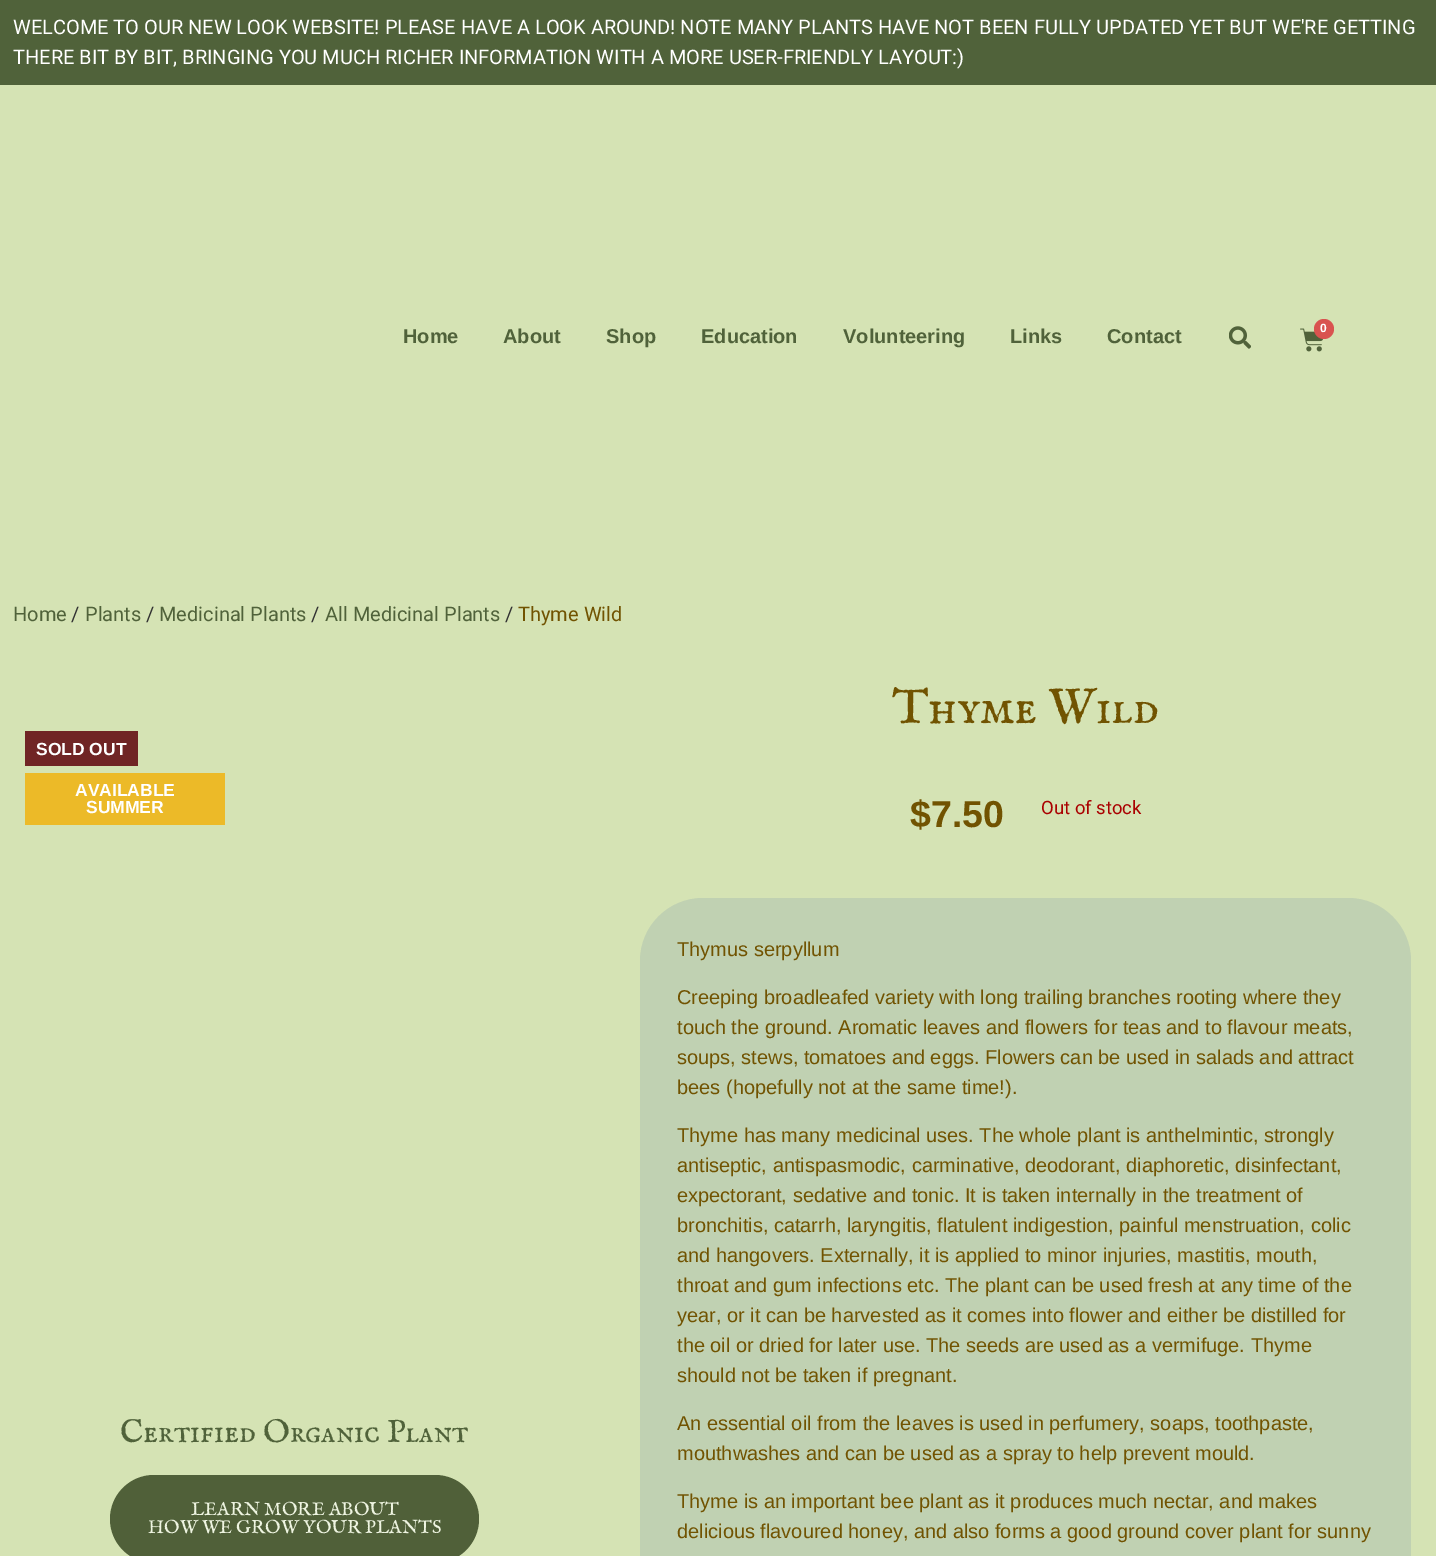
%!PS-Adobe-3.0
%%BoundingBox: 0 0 1436 1556
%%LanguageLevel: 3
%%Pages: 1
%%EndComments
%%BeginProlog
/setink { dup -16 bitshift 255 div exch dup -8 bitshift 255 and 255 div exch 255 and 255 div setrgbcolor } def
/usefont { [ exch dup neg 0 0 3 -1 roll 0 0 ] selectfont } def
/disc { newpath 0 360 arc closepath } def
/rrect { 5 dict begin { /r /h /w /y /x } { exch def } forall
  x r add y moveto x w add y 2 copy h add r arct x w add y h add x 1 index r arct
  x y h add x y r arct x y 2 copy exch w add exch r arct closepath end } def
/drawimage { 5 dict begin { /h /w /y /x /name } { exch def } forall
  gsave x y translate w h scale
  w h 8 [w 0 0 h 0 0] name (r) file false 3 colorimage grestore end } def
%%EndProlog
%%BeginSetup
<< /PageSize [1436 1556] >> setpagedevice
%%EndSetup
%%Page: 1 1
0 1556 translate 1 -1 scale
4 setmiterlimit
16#50623A setink
0 0 1436 1556 rectfill
/Roboto-Regular 20 usefont
16#FFFFFF setink
13 34 moveto (WELCOME TO OUR NEW LOOK WEBSITE! PLEASE HAVE A LOOK AROUND! NOTE MANY PLANTS HAVE NOT BEEN FULLY UPDATED YET BUT WE'RE GETTING) show
13 64 moveto (THERE BIT BY BIT, BRINGING YOU MUCH RICHER INFORMATION WITH A MORE USER-FRIENDLY LAYOUT:\)) show
16#D5E3B4 setink
0 85 1436 1471 rectfill
/LiberationSans-Bold 20 usefont
16#50623A setink
[
    [(Home) 403 343]
    [(About) 503 343]
    [(Shop) 606 343]
    [(Education) 701 343]
    [(Volunteering) 843 343]
    [(Links) 1010 343]
    [(Contact) 1107 343]
] { aload pop moveto show } forall
(img1.raw) 1229 326 22 23 drawimage
(img2.raw) 1300 328 24 24 drawimage
16#D9534F setink
1324 329 10 disc fill
/LiberationSans-Bold 12 usefont
16#FFFFFF setink
1320 332 moveto (0) show
/Roboto-Regular 20 usefont
16#50623A setink
13 621 moveto (Home) show
16#333333 setink
71 621 moveto (/) show
16#50623A setink
85 621 moveto (Plants) show
16#333333 setink
146 621 moveto (/) show
16#50623A setink
159 621 moveto (Medicinal Plants) show
16#333333 setink
311 621 moveto (/) show
16#50623A setink
325 621 moveto (All Medicinal Plants) show
16#333333 setink
505 621 moveto (/) show
16#715301 setink
518 621 moveto (Thyme Wild) show
16#702525 setink
25 731 113 35 rectfill
/LiberationSans-Bold 17.5 usefont
16#FFFFFF setink
36 755 moveto (SOLD OUT) show
16#ECBA28 setink
25 773 200 52 rectfill
16#FFFFFF setink
75 796 moveto (AVAILABLE) show
86 813 moveto (SUMMER) show
/IMFELLEnglishSC-Regular 32.5 usefont
16#50623A setink
120 1442 moveto (Certified Organic Plant) show
16#506039 setink
110 1475 369 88 44 rrect fill
/IMFELLEnglishSC-Regular 18.75 usefont
16#EEF4E1 setink
191 1515 moveto (LEARN MORE ABOUT) show
148 1533 moveto (HOW WE GROW YOUR PLANTS) show
/IMFELLEnglishSC-Regular 50 usefont
16#715301 setink
892 723 moveto (Thyme Wild) show
/LiberationSans-Bold 37.5 usefont
910 827 moveto ($7.50) show
/Roboto-Regular 18.5 usefont
16#AA0000 setink
1041 814 moveto (Out of stock) show
16#C0D1B2 setink
640 898 771 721 63 rrect fill
/LiberationSans-Regular 20 usefont
16#715301 setink
[
    [(Thymus serpyllum) 677 956]
    [(Creeping broadleafed variety with long trailing branches rooting where they) 677 1004]
    [(touch the ground. Aromatic leaves and flowers for teas and to flavour meats,) 677 1034]
    [(soups, stews, tomatoes and eggs. Flowers can be used in salads and attract) 677 1064]
    [(bees \(hopefully not at the same time!\).) 677 1094]
    [(Thyme has many medicinal uses. The whole plant is anthelmintic, strongly) 677 1142]
    [(antiseptic, antispasmodic, carminative, deodorant, diaphoretic, disinfectant,) 677 1172]
    [(expectorant, sedative and tonic. It is taken internally in the treatment of) 677 1202]
    [(bronchitis, catarrh, laryngitis, flatulent indigestion, painful menstruation, colic) 677 1232]
    [(and hangovers. Externally, it is applied to minor injuries, mastitis, mouth,) 677 1262]
    [(throat and gum infections etc. The plant can be used fresh at any time of the) 677 1292]
    [(year, or it can be harvested as it comes into flower and either be distilled for) 677 1322]
    [(the oil or dried for later use. The seeds are used as a vermifuge. Thyme) 677 1352]
    [(should not be taken if pregnant.) 677 1382]
    [(An essential oil from the leaves is used in perfumery, soaps, toothpaste,) 677 1430]
    [(mouthwashes and can be used as a spray to help prevent mould.) 677 1460]
    [(Thyme is an important bee plant as it produces much nectar, and makes) 677 1508]
    [(delicious flavoured honey, and also forms a good ground cover plant for sunny) 677 1538]
] { aload pop moveto show } forall
showpage
%%EOF
